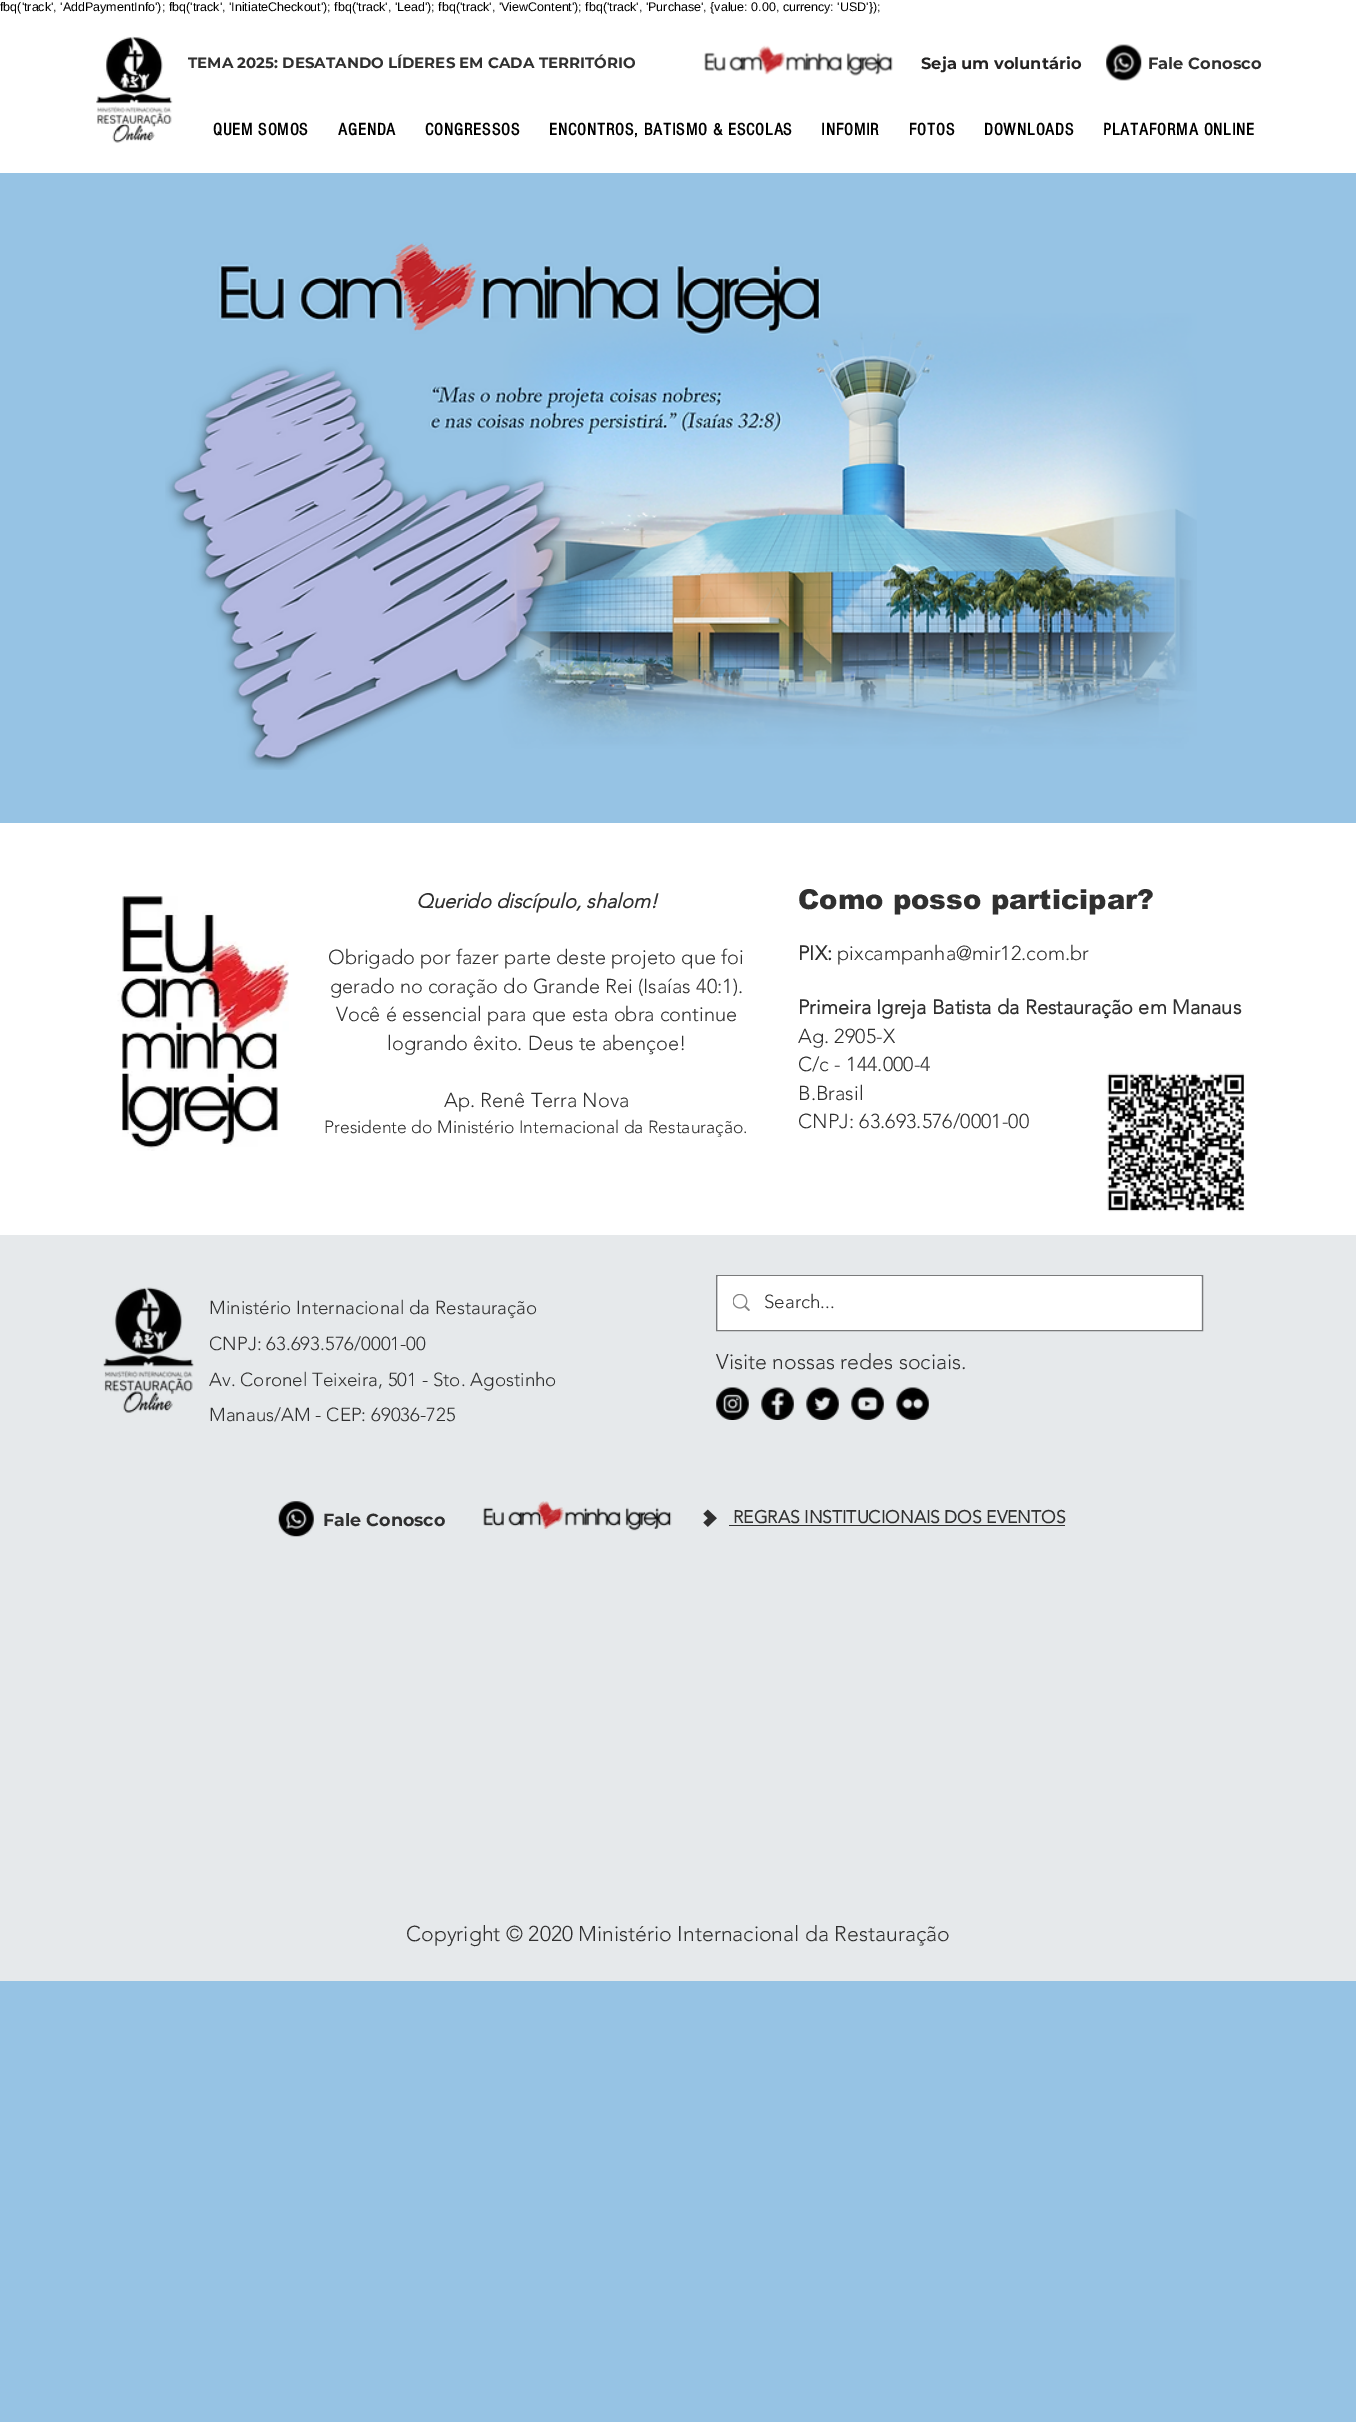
%!PS-Adobe-3.0
%%BoundingBox: 0 0 1356 2422
%%LanguageLevel: 3
%%Pages: 1
%%EndComments
%%BeginProlog
/setink { dup -16 bitshift 255 div exch dup -8 bitshift 255 and 255 div exch 255 and 255 div setrgbcolor } def
/usefont { [ exch dup neg 0 0 3 -1 roll 0 0 ] selectfont } def
/drawimage { 5 dict begin { /h /w /y /x /name } { exch def } forall
  gsave x y translate w h scale
  w h 8 [w 0 0 h 0 0] name (r) file false 3 colorimage grestore end } def
%%EndProlog
%%BeginSetup
<< /PageSize [1356 2422] >> setpagedevice
%%EndSetup
%%Page: 1 1
0 2422 translate 1 -1 scale
4 setmiterlimit
16#FFFFFF setink
0 0 1356 2422 rectfill
/LiberationSans-Regular 12.5 usefont
16#000000 setink
0 11 moveto (fbq\('track', 'AddPaymentInfo'\); fbq\('track', 'InitiateCheckout'\); fbq\('track', 'Lead'\); fbq\('track', 'ViewContent'\); fbq\('track', 'Purchase', {value: 0.00, currency: 'USD'}\);) show
(img1.raw) 96 36 77 107 drawimage
/Montserrat-Bold 15 usefont
16#303030 setink
188 68 moveto (TEMA 2025: DESATANDO LÍDERES EM CADA TERRITÓRIO) show
(img2.raw) 704 45 189 31 drawimage
/Montserrat-Bold 16.25 usefont
16#242323 setink
921 69 moveto (Seja um voluntário) show
(img3.raw) 1106 44 36 37 drawimage
16#303030 setink
1148 69 moveto (Fale Conosco) show
/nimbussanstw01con-Bold 17.5 usefont
16#000000 setink
213 135 moveto 0.9 0 (QUEM SOMOS) ashow
338 135 moveto 0.9 0 (AGENDA) ashow
425 135 moveto 0.9 0 (CONGRESSOS) ashow
549 135 moveto 0.9 0 (ENCONTROS, BATISMO & ESCOLAS) ashow
821 135 moveto 0.9 0 (INFOMIR) ashow
909 135 moveto 0.9 0 (FOTOS) ashow
984 135 moveto 0.9 0 (DOWNLOADS) ashow
1103 135 moveto 0.9 0 (PLATAFORMA ONLINE) ashow
16#96C3E4 setink
0 173 1356 2249 rectfill
(img4.raw) 165 242 1032 528 drawimage
16#FFFFFF setink
0 823 1356 412 rectfill
(img5.raw) 117 896 172 255 drawimage
/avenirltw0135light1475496-BoldItalic 20 usefont
16#303030 setink
416 908 moveto (Querido discípulo, shalom!) show
/avenirltw0135light1475496-Light 20 usefont
[
    [(Obrigado por fazer parte deste projeto que foi) 328 964]
    [(gerado no coração do Grande Rei \(Isaías 40:1\).) 330 993]
    [(Você é essencial para que esta obra continue) 336 1021]
    [(logrando êxito. Deus te abençoe!) 387 1050]
    [(Ap. Renê Terra Nova) 444 1107]
] { aload pop moveto show } forall
/avenirltw0135light1475496-Light 17.5 usefont
324 1133 moveto (Presidente do Ministério Internacional da Restauração.) show
/arial-Black 27.5 usefont
798 909 moveto (Como posso participar?) show
/avenirltw0135light1475496-Bold 20 usefont
798 960 moveto (PIX:) show
/avenirltw0135light1475496-Light 20 usefont
837 960 moveto (pixcampanha@mir12.com.br) show
/avenirltw0135light1475496-Bold 20 usefont
798 1014 moveto (Primeira Igreja Batista da Restauração em Manaus) show
/avenirltw0135light1475496-Light 20 usefont
[
    [(Ag. 2905-X) 798 1043]
    [(C/c - 144.000-4) 798 1071]
    [(B.Brasil) 798 1100]
    [(CNPJ: 63.693.576/0001-00) 798 1128]
] { aload pop moveto show } forall
(img6.raw) 1107 1073 138 139 drawimage
16#E6E9EB setink
0 1235 1356 746 rectfill
(img7.raw) 103 1287 91 126 drawimage
/avenirltw0135light1475496-Light 18.75 usefont
16#303030 setink
[
    [(Ministério Internacional da Restauração) 209 1314]
    [(CNPJ: 63.693.576/0001-00) 209 1350]
    [(Av. Coronel Teixeira, 501 - Sto. Agostinho) 209 1386]
    [(Manaus/AM - CEP: 69036-725) 209 1421]
] { aload pop moveto show } forall
16#797A7B setink
716.5 1275.5 486 55 rectstroke
16#FFFFFF setink
718 1276 483 54 rectfill
(img8.raw) 733 1294 17 17 drawimage
16#303030 setink
764 1308 moveto (Search...) show
/avenirltw0135light1475496-Light 21.25 usefont
716 1369 moveto (Visite nossas redes sociais.) show
(img9.raw) 716 1387 33 33 drawimage
(img10.raw) 761 1387 33 33 drawimage
(img11.raw) 806 1387 33 33 drawimage
(img12.raw) 851 1387 33 33 drawimage
(img13.raw) 896 1387 33 33 drawimage
(img14.raw) 278 1501 36 36 drawimage
/Montserrat-Bold 17.5 usefont
323 1526 moveto (Fale Conosco) show
(img15.raw) 483 1501 189 30 drawimage
(img16.raw) 703 1509 14 18 drawimage
/avenirltw0135light1475496-Bold 17.5 usefont
733 1523 moveto (REGRAS INSTITUCIONAIS DOS EVENTOS) show
729 1525 336 1 rectfill
/avenirltw0135light1475496-Light 21.25 usefont
406 1941 moveto (Copyright © 2020 Ministério Internacional da Restauração) show
showpage
%%EOF
